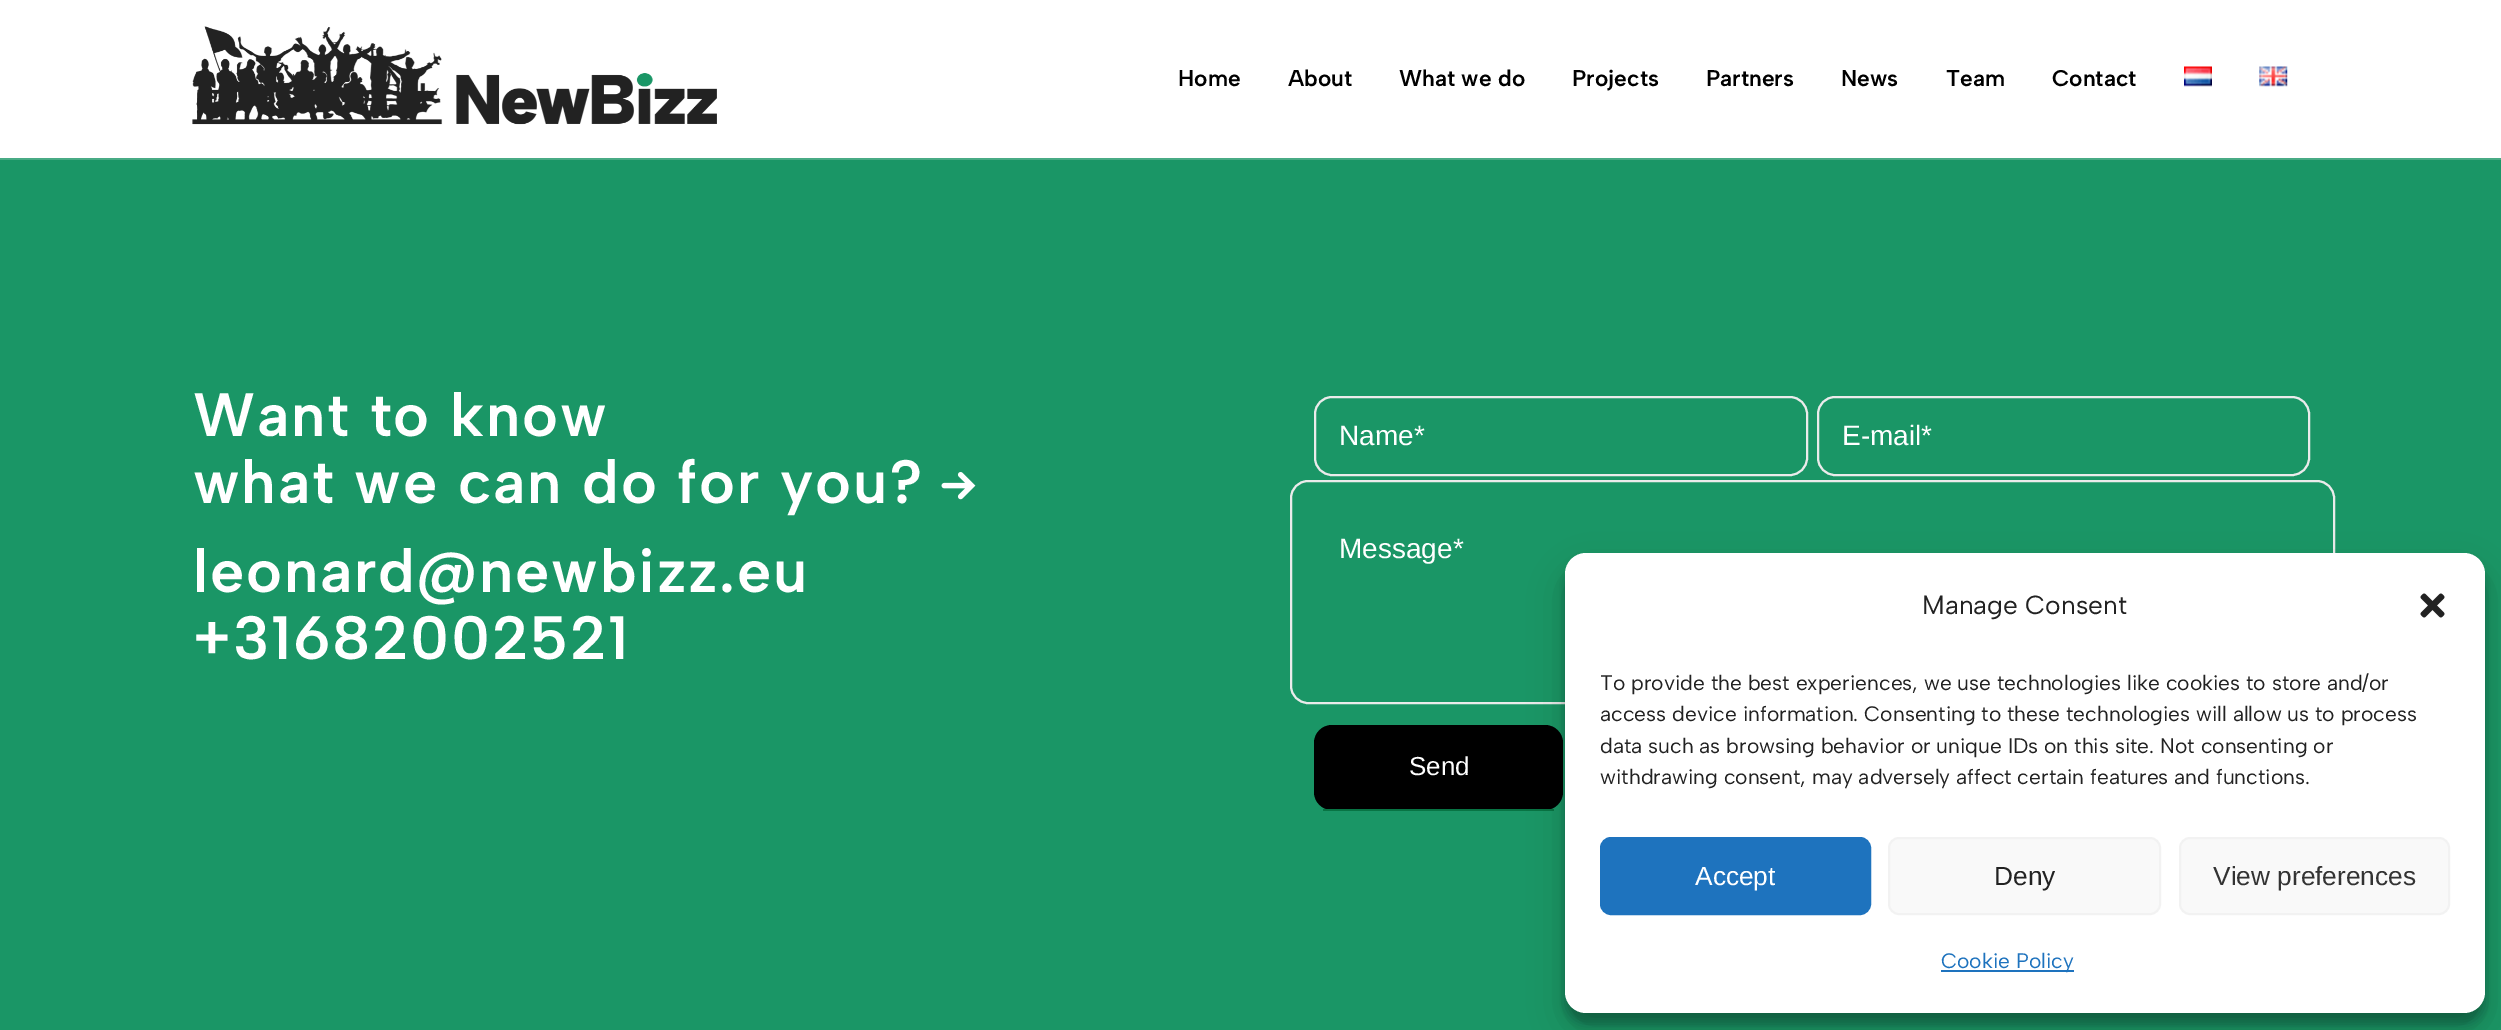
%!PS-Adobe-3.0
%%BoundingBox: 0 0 2501 1030
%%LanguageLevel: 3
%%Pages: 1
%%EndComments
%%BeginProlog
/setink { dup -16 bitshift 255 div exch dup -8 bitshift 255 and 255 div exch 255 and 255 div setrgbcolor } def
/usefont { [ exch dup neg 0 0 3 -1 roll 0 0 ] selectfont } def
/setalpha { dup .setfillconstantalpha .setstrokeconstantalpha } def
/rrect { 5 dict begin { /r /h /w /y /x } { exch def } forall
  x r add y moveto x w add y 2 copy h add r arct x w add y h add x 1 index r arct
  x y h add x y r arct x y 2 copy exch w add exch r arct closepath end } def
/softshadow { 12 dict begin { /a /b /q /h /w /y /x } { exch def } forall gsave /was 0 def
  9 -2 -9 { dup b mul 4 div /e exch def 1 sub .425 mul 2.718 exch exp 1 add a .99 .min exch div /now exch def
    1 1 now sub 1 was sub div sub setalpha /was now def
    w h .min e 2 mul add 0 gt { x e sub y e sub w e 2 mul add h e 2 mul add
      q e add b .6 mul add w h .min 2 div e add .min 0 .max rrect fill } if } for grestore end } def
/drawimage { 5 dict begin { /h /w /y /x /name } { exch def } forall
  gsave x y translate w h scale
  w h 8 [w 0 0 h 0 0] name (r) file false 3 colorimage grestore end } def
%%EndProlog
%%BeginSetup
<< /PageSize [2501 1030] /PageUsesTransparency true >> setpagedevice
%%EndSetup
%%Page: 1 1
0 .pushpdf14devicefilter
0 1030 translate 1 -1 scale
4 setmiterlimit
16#1A9666 setink
0 0 2501 1030 rectfill
16#48AB85 setink
0 158 2501 2 rectfill
16#FFFFFF setink
0 0 2501 158 rectfill
(img1.raw) 192 26 525 99 drawimage
/AlbertSans-SemiBold 22.75 usefont
16#000000 setink
[
    [(Home) 1178 86]
    [(About) 1288 86]
    [(What we do) 1399 86]
    [(Projects) 1572 86]
    [(Partners) 1706 86]
    [(News) 1841 86]
    [(Team) 1946 86]
    [(Contact) 2052 86]
] { aload pop moveto show } forall
(img2.raw) 2184 66 28 21 drawimage
(img3.raw) 2259 66 29 21 drawimage
/AlbertSans-SemiBold 61.25 usefont
16#FFFFFF setink
193 436 moveto 1.75 0 (Want to know) ashow
193 503 moveto 1.75 0 (what we can do for you?) ashow
(img4.raw) 941 472 35 28 drawimage
193 592 moveto 1.75 0 (leonard@newbizz.eu) ashow
193 659 moveto 1.75 0 (+31682002521) ashow
16#EBEBEB setink
2 setlinewidth
1315 397 492 78 17 rrect stroke
/LiberationSans-Regular 28 usefont
16#FFFFFF setink
1339 445 moveto (Name*) show
16#EBEBEB setink
1818 397 491 78 17 rrect stroke
16#FFFFFF setink
1842 445 moveto (E-mail*) show
16#EBEBEB setink
1291 481 1043 222 17 rrect stroke
16#FFFFFF setink
1339 558 moveto (Message*) show
16#000000 setink
1314 725 249 85 18 rrect fill
16#087444 setink
1323 809 231 2 rectfill
/LiberationSans-Regular 26 usefont
16#FFFFFF setink
1409 775 moveto (Send) show
16#000000 setink
1565 564 920 460 21 5 0.23 softshadow
1565 571 920 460 21 17.5 0.19 softshadow
16#FFFFFF setink
1565 553 920 460 21 rrect fill
/AlbertSans-Regular 26.25 usefont
16#222222 setink
1922 614 moveto (Manage Consent) show
(img5.raw) 2420 593 25 25 drawimage
/AlbertSans-Regular 21 usefont
[
    [(To provide the best experiences, we use technologies like cookies to store and/or) 1600 690]
    [(access device information. Consenting to these technologies will allow us to process) 1600 721]
    [(data such as browsing behavior or unique IDs on this site. Not consenting or) 1600 753]
    [(withdrawing consent, may adversely affect certain features and functions.) 1600 784]
] { aload pop moveto show } forall
16#1E73BE setink
1601 838 269 76 10 rrect gsave fill grestore
stroke
/LiberationSans-Regular 26.25 usefont
16#FFFFFF setink
1695 885 moveto (Accept) show
16#F9F9F9 setink
1889 838 271 76 10 rrect gsave fill grestore
16#F2F2F2 setink
stroke
16#222222 setink
1994 885 moveto (Deny) show
16#F9F9F9 setink
2180 838 269 76 10 rrect gsave fill grestore
16#F2F2F2 setink
stroke
16#333333 setink
2213 885 moveto (View preferences) show
16#1E73BE setink
1941 970 133 2 rectfill
/AlbertSans-Regular 21 usefont
1941 968 moveto (Cookie Policy) show
.poppdf14devicefilter showpage
%%EOF
